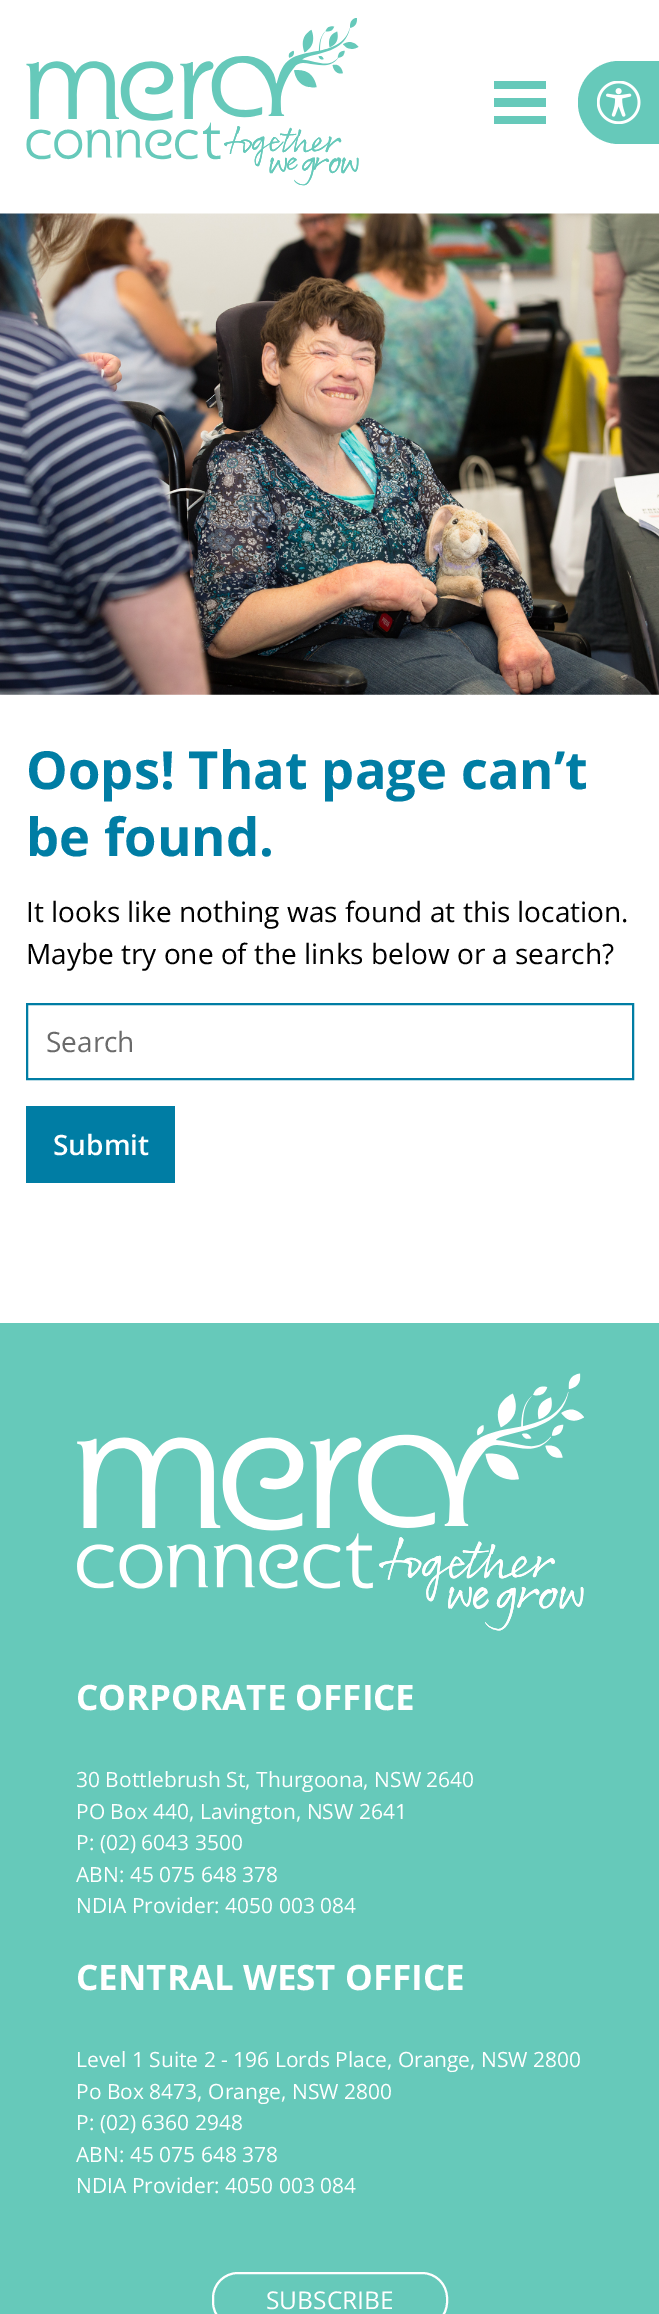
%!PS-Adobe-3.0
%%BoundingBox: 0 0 659 2314
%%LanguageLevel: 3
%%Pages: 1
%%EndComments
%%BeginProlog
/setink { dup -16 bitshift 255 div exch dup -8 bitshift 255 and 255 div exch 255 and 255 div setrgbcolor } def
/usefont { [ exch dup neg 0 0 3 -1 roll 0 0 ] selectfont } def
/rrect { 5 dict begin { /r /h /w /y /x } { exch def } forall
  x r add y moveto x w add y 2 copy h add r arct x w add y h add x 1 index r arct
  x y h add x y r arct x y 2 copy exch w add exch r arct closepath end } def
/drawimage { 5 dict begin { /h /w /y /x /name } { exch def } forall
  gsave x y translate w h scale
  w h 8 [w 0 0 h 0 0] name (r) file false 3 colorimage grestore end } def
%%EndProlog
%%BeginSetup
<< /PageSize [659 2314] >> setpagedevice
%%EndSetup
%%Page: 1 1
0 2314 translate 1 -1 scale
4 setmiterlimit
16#FFFFFF setink
0 0 659 2314 rectfill
(img1.raw) 26 18 333 168 drawimage
[
    [494 98 52 9 16#66C9BA]
    [494 81 52 8 16#66C9BA]
    [494 116 52 8 16#66C9BA]
] { aload pop setink rectfill } forall
619 61 moveto 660 61 lineto 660 144 lineto 619 144 lineto 596.5 144 578 125.5 578 103 curveto 578 102 lineto 578 79.5 596.5 61 619 61 curveto closepath fill
(img2.raw) 597 81 44 43 drawimage
(img3.raw) 0 213 659 482 drawimage
/OpenSans-Bold 52.5 usefont
16#007DA4 setink
26 789 moveto (Oops! That page can’t) show
26 856 moveto (be found.) show
/OpenSans-Regular 28 usefont
16#000000 setink
26 922 moveto (It looks like nothing was found at this location.) show
26 964 moveto (Maybe try one of the links below or a search?) show
16#007DA4 setink
2 setlinewidth
27 1004 606 75 rectstroke
16#6A6A6A setink
46 1052 moveto (Search) show
16#007DA4 setink
26 1106 149 77 rectfill
/OpenSans-SemiBold 28 usefont
16#FFFFFF setink
53 1155 moveto (Submit) show
16#66C9BA setink
0 1323 659 991 rectfill
(img4.raw) 77 1373 507 258 drawimage
/OpenSans-Bold 35 usefont
16#FFFFFF setink
76 1710 moveto (CORPORATE OFFICE) show
/OpenSans-Regular 21 usefont
[
    [(30 Bottlebrush St, Thurgoona, NSW 2640) 76 1787]
    [(PO Box 440, Lavington, NSW 2641) 76 1819]
    [(P: \(02\) 6043 3500) 76 1850]
    [(ABN: 45 075 648 378) 76 1882]
    [(NDIA Provider: 4050 003 084) 76 1913]
] { aload pop moveto show } forall
/OpenSans-Bold 35 usefont
76 1990 moveto (CENTRAL WEST OFFICE) show
/OpenSans-Regular 21 usefont
[
    [(Level 1 Suite 2 - 196 Lords Place, Orange, NSW 2800) 76 2067]
    [(Po Box 8473, Orange, NSW 2800) 76 2099]
    [(P: \(02\) 6360 2948) 76 2130]
    [(ABN: 45 075 648 378) 76 2162]
    [(NDIA Provider: 4050 003 084) 76 2193]
] { aload pop moveto show } forall
213 2273 234 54 25 rrect stroke
/OpenSans-Regular 24.5 usefont
266 2309 moveto (SUBSCRIBE) show
showpage
%%EOF
